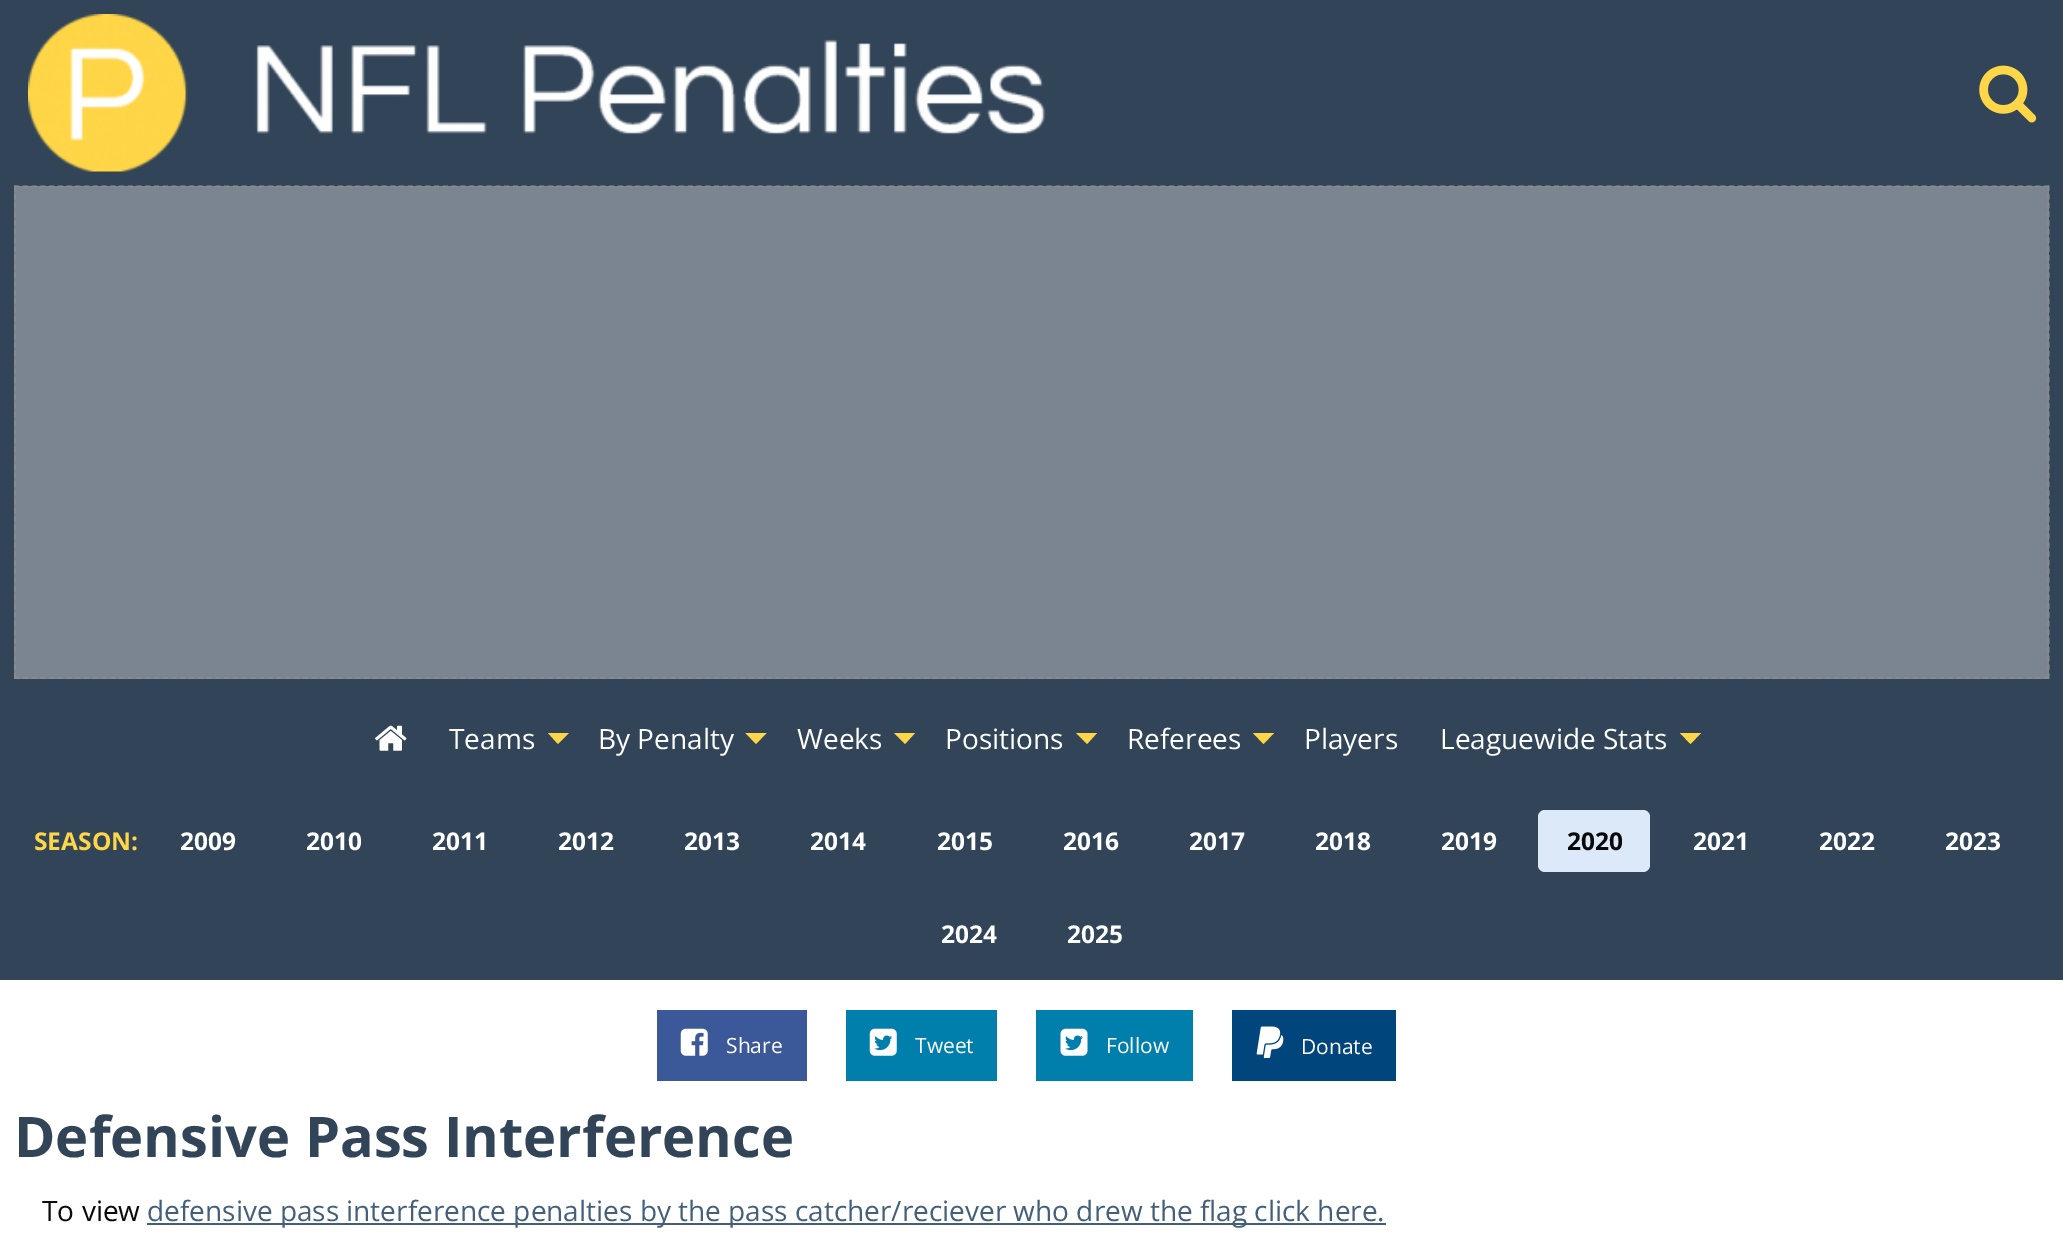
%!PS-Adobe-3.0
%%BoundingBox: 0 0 2063 1233
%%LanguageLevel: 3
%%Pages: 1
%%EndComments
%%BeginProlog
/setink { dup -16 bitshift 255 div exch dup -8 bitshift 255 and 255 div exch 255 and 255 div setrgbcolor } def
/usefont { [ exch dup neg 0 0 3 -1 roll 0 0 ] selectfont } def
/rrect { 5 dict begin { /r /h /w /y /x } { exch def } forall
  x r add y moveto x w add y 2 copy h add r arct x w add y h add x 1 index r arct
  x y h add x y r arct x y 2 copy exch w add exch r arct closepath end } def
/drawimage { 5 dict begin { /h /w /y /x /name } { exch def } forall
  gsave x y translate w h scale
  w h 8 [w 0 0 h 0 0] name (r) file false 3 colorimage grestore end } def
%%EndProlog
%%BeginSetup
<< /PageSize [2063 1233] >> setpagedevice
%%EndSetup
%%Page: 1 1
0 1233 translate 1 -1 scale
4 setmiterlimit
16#FFFFFF setink
0 0 2063 1233 rectfill
16#324558 setink
0 0 2063 980 rectfill
(img1.raw) 28 14 1018 158 drawimage
(img2.raw) 1979 65 58 58 drawimage
16#7A8591 setink
14 186 2035 493 rectfill
16#898B88 setink
1.8 setlinewidth
[5.25 3.5] 0 setdash
14 186.5 moveto 2049 186.5 lineto stroke
[5.25 3.46] 0 setdash
2048.5 185.5 moveto 2048.5 679 lineto stroke
[5.25 3.5] 0 setdash
14 678 moveto 2049 678 lineto stroke
[5.25 3.46] 0 setdash
15 185.5 moveto 15 679 lineto stroke
(img3.raw) 375 725 32 26 drawimage
/OpenSans-Regular 28 usefont
16#FFFFFF setink
449 749 moveto (Teams) show
16#FFD648 setink
548 733 moveto 569 733 lineto 558 744 lineto closepath fill
16#FFFFFF setink
598 749 moveto (By Penalty) show
16#FFD648 setink
745.5 733 moveto 766.5 733 lineto 756 744 lineto closepath fill
16#FFFFFF setink
797 749 moveto (Weeks) show
16#FFD648 setink
894 733 moveto 915 733 lineto 905 744 lineto closepath fill
16#FFFFFF setink
945 749 moveto (Positions) show
16#FFD648 setink
1076 733 moveto 1097 733 lineto 1087 744 lineto closepath fill
16#FFFFFF setink
1127 749 moveto (Referees) show
16#FFD648 setink
1253 733 moveto 1274 733 lineto 1263.5 744 lineto closepath fill
16#FFFFFF setink
1304 749 moveto (Players) show
1440 749 moveto (Leaguewide Stats) show
16#FFD648 setink
1680 733 moveto 1701 733 lineto 1690.5 744 lineto closepath fill
/OpenSans-Bold 24.5 usefont
34 850 moveto (SEASON:) show
16#FFFFFF setink
[
    [(2009) 180 850]
    [(2010) 306 850]
    [(2011) 432 850]
    [(2012) 558 850]
    [(2013) 684 850]
    [(2014) 810 850]
    [(2015) 937 850]
    [(2016) 1063 850]
    [(2017) 1189 850]
    [(2018) 1315 850]
    [(2019) 1441 850]
] { aload pop moveto show } forall
16#DCE9F9 setink
1538 810 112 62 7 rrect fill
16#0A0A0A setink
1567 850 moveto (2020) show
16#FFFFFF setink
[
    [(2021) 1693 850]
    [(2022) 1819 850]
    [(2023) 1945 850]
    [(2024) 941 943]
    [(2025) 1067 943]
] { aload pop moveto show } forall
16#3B5998 setink
657 1010 150 71 rectfill
(img4.raw) 680 1028 28 28 drawimage
/OpenSans-Regular 21 usefont
16#FFFFFF setink
726 1053 moveto (Share) show
16#007FAD setink
846 1010 151 71 rectfill
(img5.raw) 869 1028 28 28 drawimage
16#FFFFFF setink
915 1053 moveto (Tweet) show
16#007FAD setink
1036 1010 157 71 rectfill
(img6.raw) 1060 1028 28 28 drawimage
16#FFFFFF setink
1106 1053 moveto (Follow) show
16#00457C setink
1232 1010 164 71 rectfill
(img7.raw) 1256 1026 28 32 drawimage
16#FFFFFF setink
1301 1054 moveto (Donate) show
/OpenSans-Bold 56 usefont
16#324558 setink
14 1157 moveto (Defensive Pass Interference) show
/OpenSans-Regular 28 usefont
16#0A0A0A setink
42 1221 moveto (To view) show
16#445F79 setink
147 1223 1239 2 rectfill
147 1221 moveto (defensive pass interference penalties by the pass catcher/reciever who drew the flag click here.) show
showpage
%%EOF
